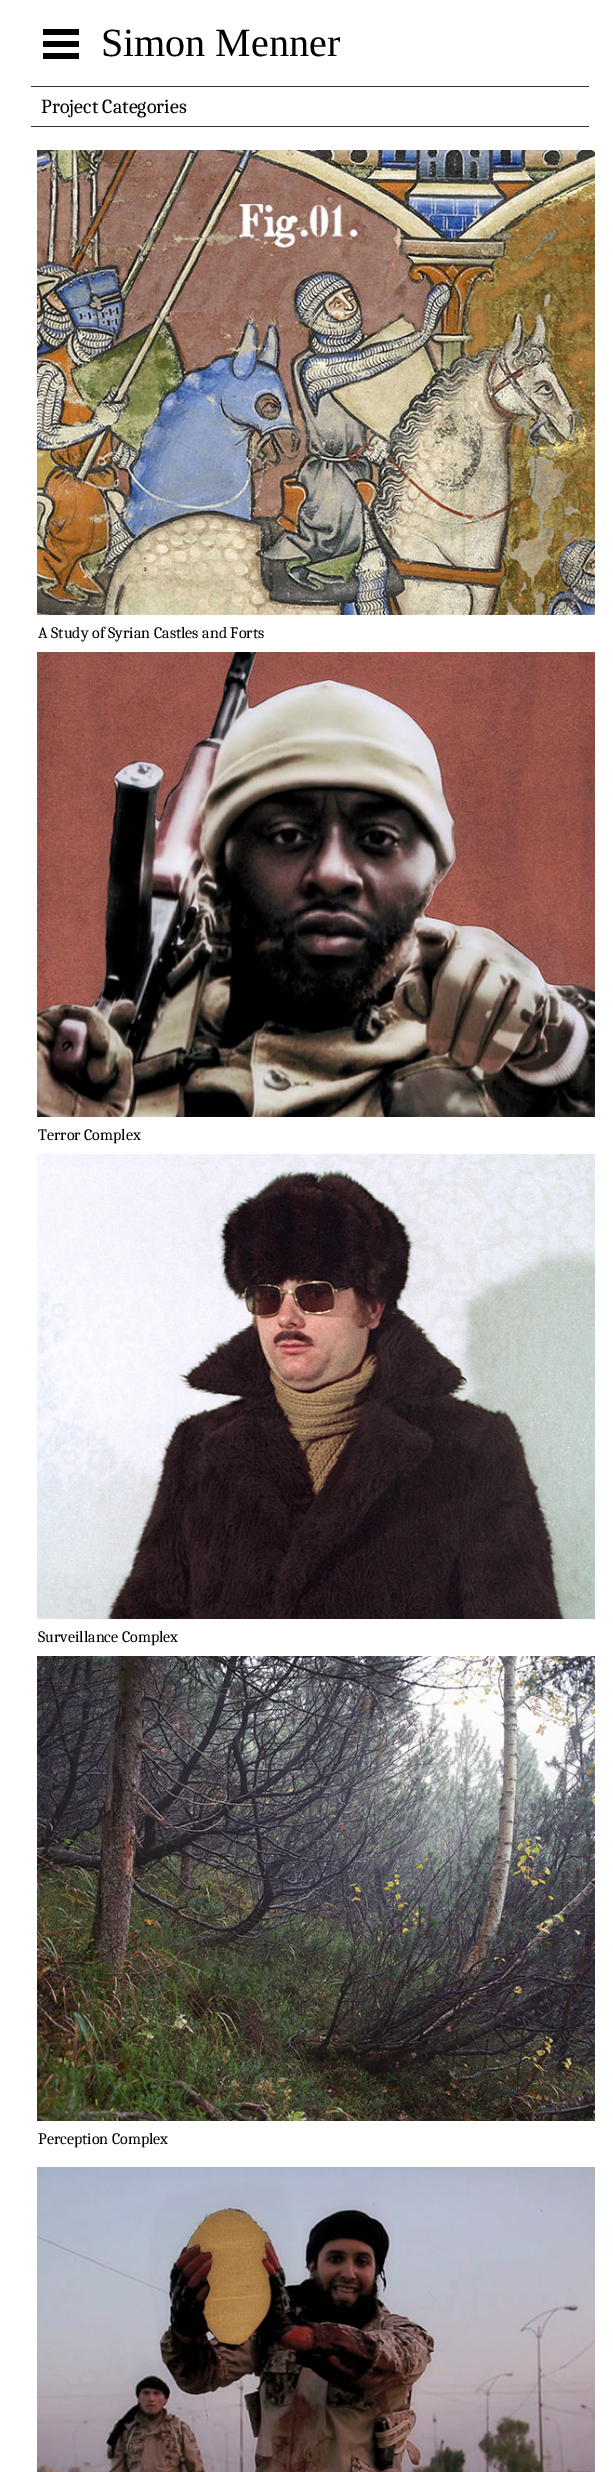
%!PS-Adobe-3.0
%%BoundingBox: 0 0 613 2472
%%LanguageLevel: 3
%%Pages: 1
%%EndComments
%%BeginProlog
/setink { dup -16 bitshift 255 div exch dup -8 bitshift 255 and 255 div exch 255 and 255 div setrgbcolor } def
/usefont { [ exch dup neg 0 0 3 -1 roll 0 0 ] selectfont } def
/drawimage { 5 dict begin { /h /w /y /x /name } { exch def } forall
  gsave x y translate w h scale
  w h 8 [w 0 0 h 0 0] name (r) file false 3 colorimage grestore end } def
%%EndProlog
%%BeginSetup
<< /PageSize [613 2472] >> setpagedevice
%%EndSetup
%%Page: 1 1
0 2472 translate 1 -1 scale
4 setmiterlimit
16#FFFFFF setink
0 0 613 2472 rectfill
[
    [43 53 36 6 16#000000]
    [43 41 36 6 16#000000]
    [43 29 36 6 16#000000]
] { aload pop setink rectfill } forall
/LiberationSerif-Regular 40 usefont
101 56 moveto (Simon Menner) show
16#333333 setink
31 86 558 1 rectfill
/Caladea-Regular 20 usefont
16#000000 setink
41 113 moveto (Project Categories) show
16#333333 setink
31 126 558 1 rectfill
(img1.raw) 37 150 558 465 drawimage
/Caladea-Regular 16 usefont
16#000000 setink
38 638 moveto (A Study of Syrian Castles and Forts) show
(img2.raw) 37 652 558 465 drawimage
38 1140 moveto (Terror Complex) show
(img3.raw) 37 1154 558 465 drawimage
38 1642 moveto (Surveillance Complex) show
(img4.raw) 37 1656 558 465 drawimage
38 2144 moveto (Perception Complex) show
(img5.raw) 37 2167 558 305 drawimage
showpage
%%EOF
